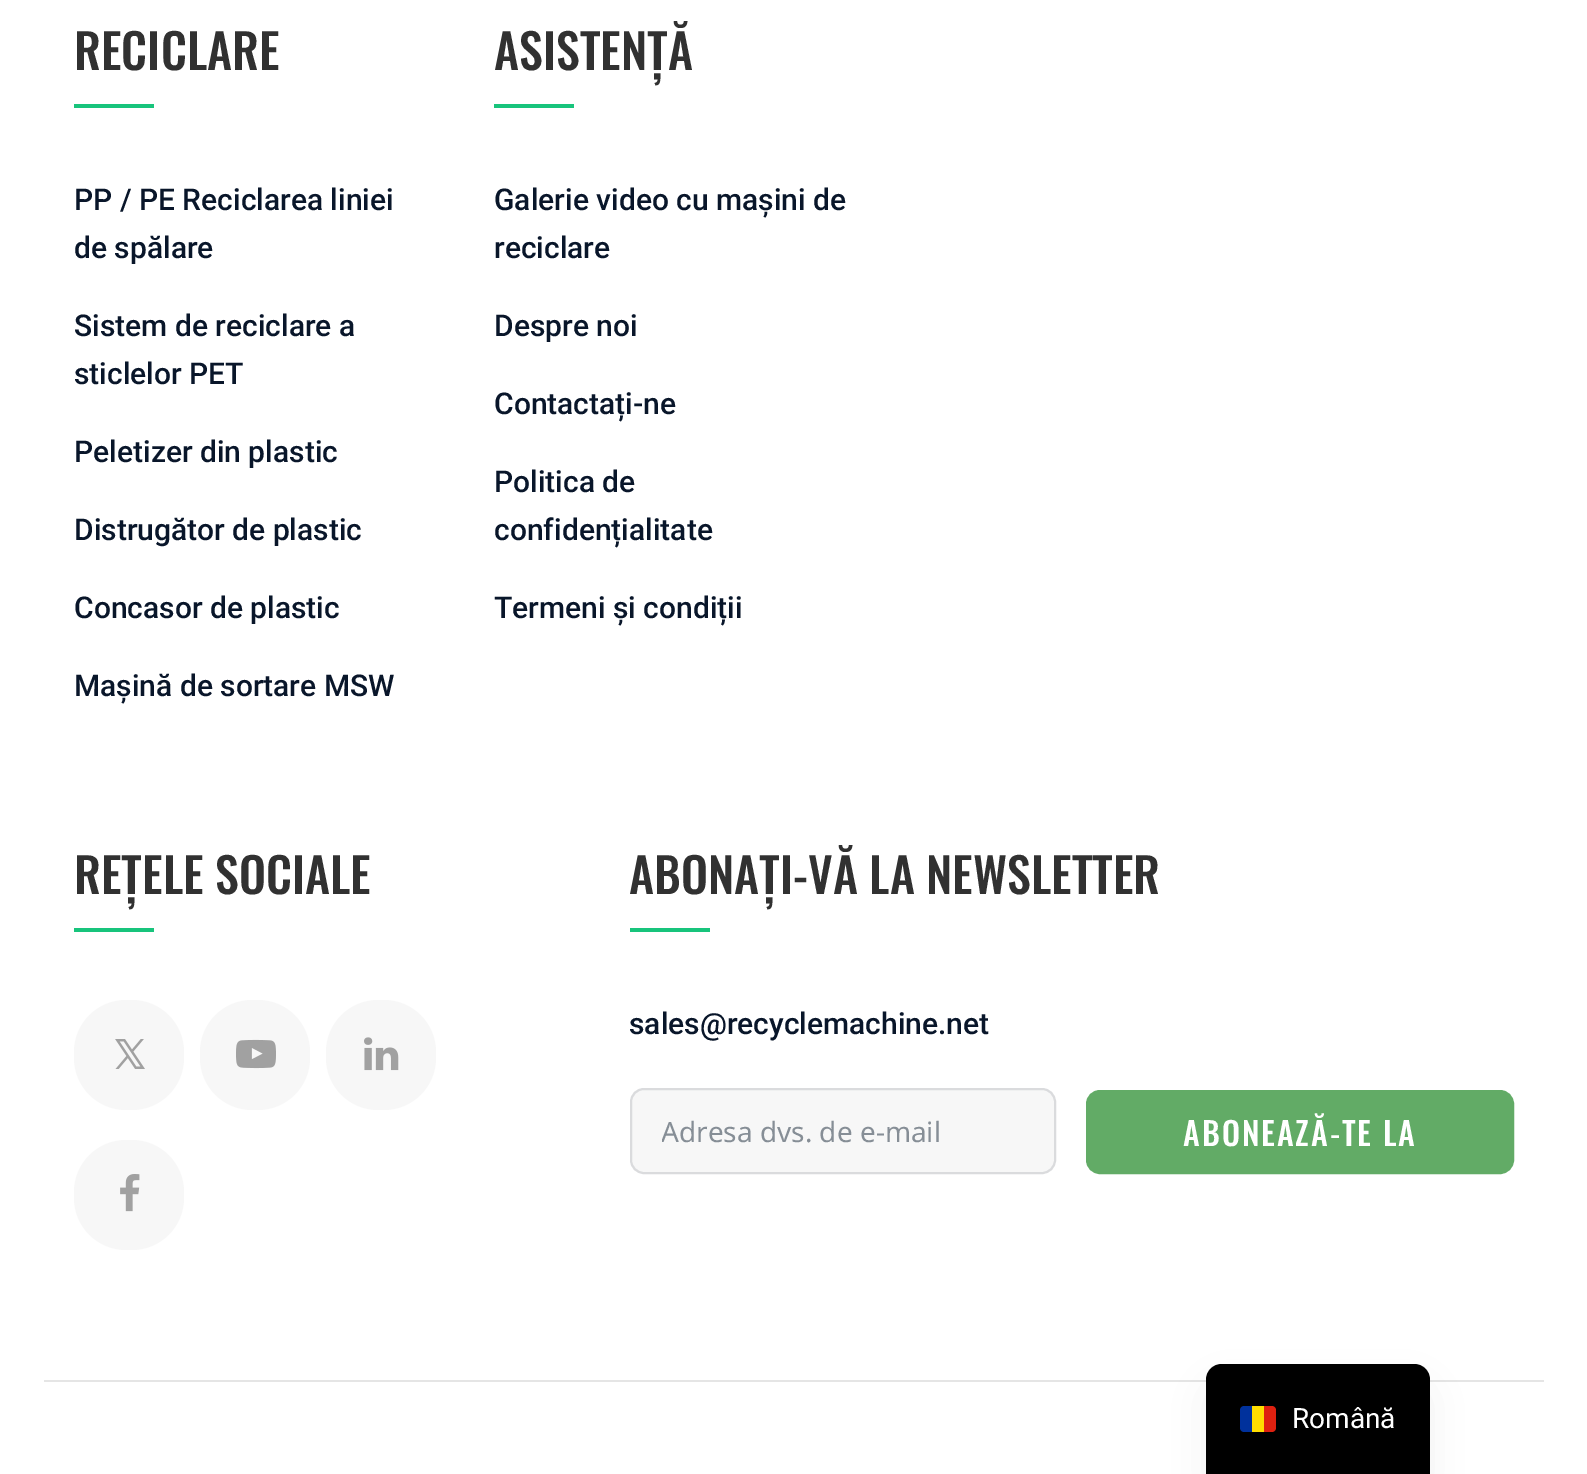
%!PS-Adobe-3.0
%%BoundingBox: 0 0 1587 1474
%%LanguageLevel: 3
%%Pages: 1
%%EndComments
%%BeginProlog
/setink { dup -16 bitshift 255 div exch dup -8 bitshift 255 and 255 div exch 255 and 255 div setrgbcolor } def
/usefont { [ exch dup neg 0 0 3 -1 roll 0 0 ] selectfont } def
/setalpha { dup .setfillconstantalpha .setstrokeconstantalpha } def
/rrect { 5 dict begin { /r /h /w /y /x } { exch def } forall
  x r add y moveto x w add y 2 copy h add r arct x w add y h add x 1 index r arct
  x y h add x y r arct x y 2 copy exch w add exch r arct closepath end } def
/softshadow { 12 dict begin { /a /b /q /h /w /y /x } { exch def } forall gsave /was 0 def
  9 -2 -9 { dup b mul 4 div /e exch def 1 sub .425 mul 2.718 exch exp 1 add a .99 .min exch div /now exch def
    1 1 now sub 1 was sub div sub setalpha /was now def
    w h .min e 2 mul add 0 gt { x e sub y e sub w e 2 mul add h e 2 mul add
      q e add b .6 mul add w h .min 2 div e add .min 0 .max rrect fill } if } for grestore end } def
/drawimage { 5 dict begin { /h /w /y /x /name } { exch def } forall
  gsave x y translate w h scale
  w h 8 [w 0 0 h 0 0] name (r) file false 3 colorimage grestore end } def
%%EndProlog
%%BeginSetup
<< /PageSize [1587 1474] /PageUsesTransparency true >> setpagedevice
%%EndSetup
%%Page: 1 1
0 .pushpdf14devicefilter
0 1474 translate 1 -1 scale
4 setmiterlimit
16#FFFFFF setink
0 0 1587 1474 rectfill
/Oswald-Medium 48 usefont
16#313131 setink
74 70 moveto (RECICLARE) show
16#18C47C setink
74 104 80 4 rectfill
/Roboto-Medium 30 usefont
16#09162A setink
[
    [(PP / PE Reciclarea liniei) 74 210]
    [(de spălare) 74 258]
    [(Sistem de reciclare a) 74 336]
    [(sticlelor PET) 74 384]
    [(Peletizer din plastic) 74 462]
    [(Distrugător de plastic) 74 540]
    [(Concasor de plastic) 74 618]
    [(Mașină de sortare MSW) 74 696]
] { aload pop moveto show } forall
/Oswald-Medium 48 usefont
16#313131 setink
494 70 moveto (ASISTENȚĂ) show
16#18C47C setink
494 104 80 4 rectfill
/Roboto-Medium 30 usefont
16#09162A setink
[
    [(Galerie video cu mașini de) 494 210]
    [(reciclare) 494 258]
    [(Despre noi) 494 336]
    [(Contactați-ne) 494 414]
    [(Politica de) 494 492]
    [(confidențialitate) 494 540]
    [(Termeni și condiții) 494 618]
] { aload pop moveto show } forall
16#E5E5E5 setink
44 1380 1500 2 rectfill
/Oswald-Medium 48 usefont
16#313131 setink
74 894 moveto (REȚELE SOCIALE) show
16#18C47C setink
74 928 80 4 rectfill
16#F7F7F7 setink
74 1000 110 110 52 rrect fill
(img1.raw) 115 1039 30 30 drawimage
200 1000 110 110 52 rrect fill
(img2.raw) 236 1039 40 30 drawimage
326 1000 110 110 52 rrect fill
(img3.raw) 364 1037 35 34 drawimage
74 1140 110 110 52 rrect fill
(img4.raw) 120 1174 20 38 drawimage
16#313131 setink
629 894 moveto (ABONAȚI-VĂ LA NEWSLETTER) show
16#18C47C setink
630 928 80 4 rectfill
/Roboto-Medium 30 usefont
16#09162A setink
629 1034 moveto (sales@recyclemachine.net) show
16#F7F7F7 setink
631 1089 424 84 13 rrect gsave fill grestore
16#DADBDD setink
2 setlinewidth
stroke
gsave
662 1112 362 38 rectclip
/NotoSans-Regular 28 usefont
16#868E96 setink
661 1142 moveto (Adresa dvs. de e-mail) show
grestore
16#62AB66 setink
1087 1091 426 82 13 rrect gsave fill grestore
stroke
/Oswald-Medium 32 usefont
16#FFFFFF setink
1183 1146 moveto 2 0 (ABONEAZĂ-TE LA) ashow
16#000000 setink
1206 1384 224 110 16 20 0.05 softshadow
1222 1364 moveto 1414 1364 lineto 1423 1364 1430 1371 1430 1380 curveto 1430 1474 lineto 1206 1474 lineto 1206 1380 lineto 1206 1371 1213 1364 1222 1364 curveto closepath fill
16#00319C setink
1244 1406 moveto 1252 1406 lineto 1252 1432 lineto 1244 1432 lineto 1242 1432 1240 1430 1240 1428 curveto 1240 1410 lineto 1240 1408 1242 1406 1244 1406 curveto closepath fill
16#FFDE00 setink
1252 1406 12 26 rectfill
16#DE2110 setink
1264 1406 moveto 1272 1406 lineto 1274 1406 1276 1408 1276 1410 curveto 1276 1428 lineto 1276 1430 1274 1432 1272 1432 curveto 1264 1432 lineto closepath fill
/Roboto-Regular 28 usefont
16#FFFFFF setink
1292 1428 moveto (Română) show
.poppdf14devicefilter showpage
%%EOF
